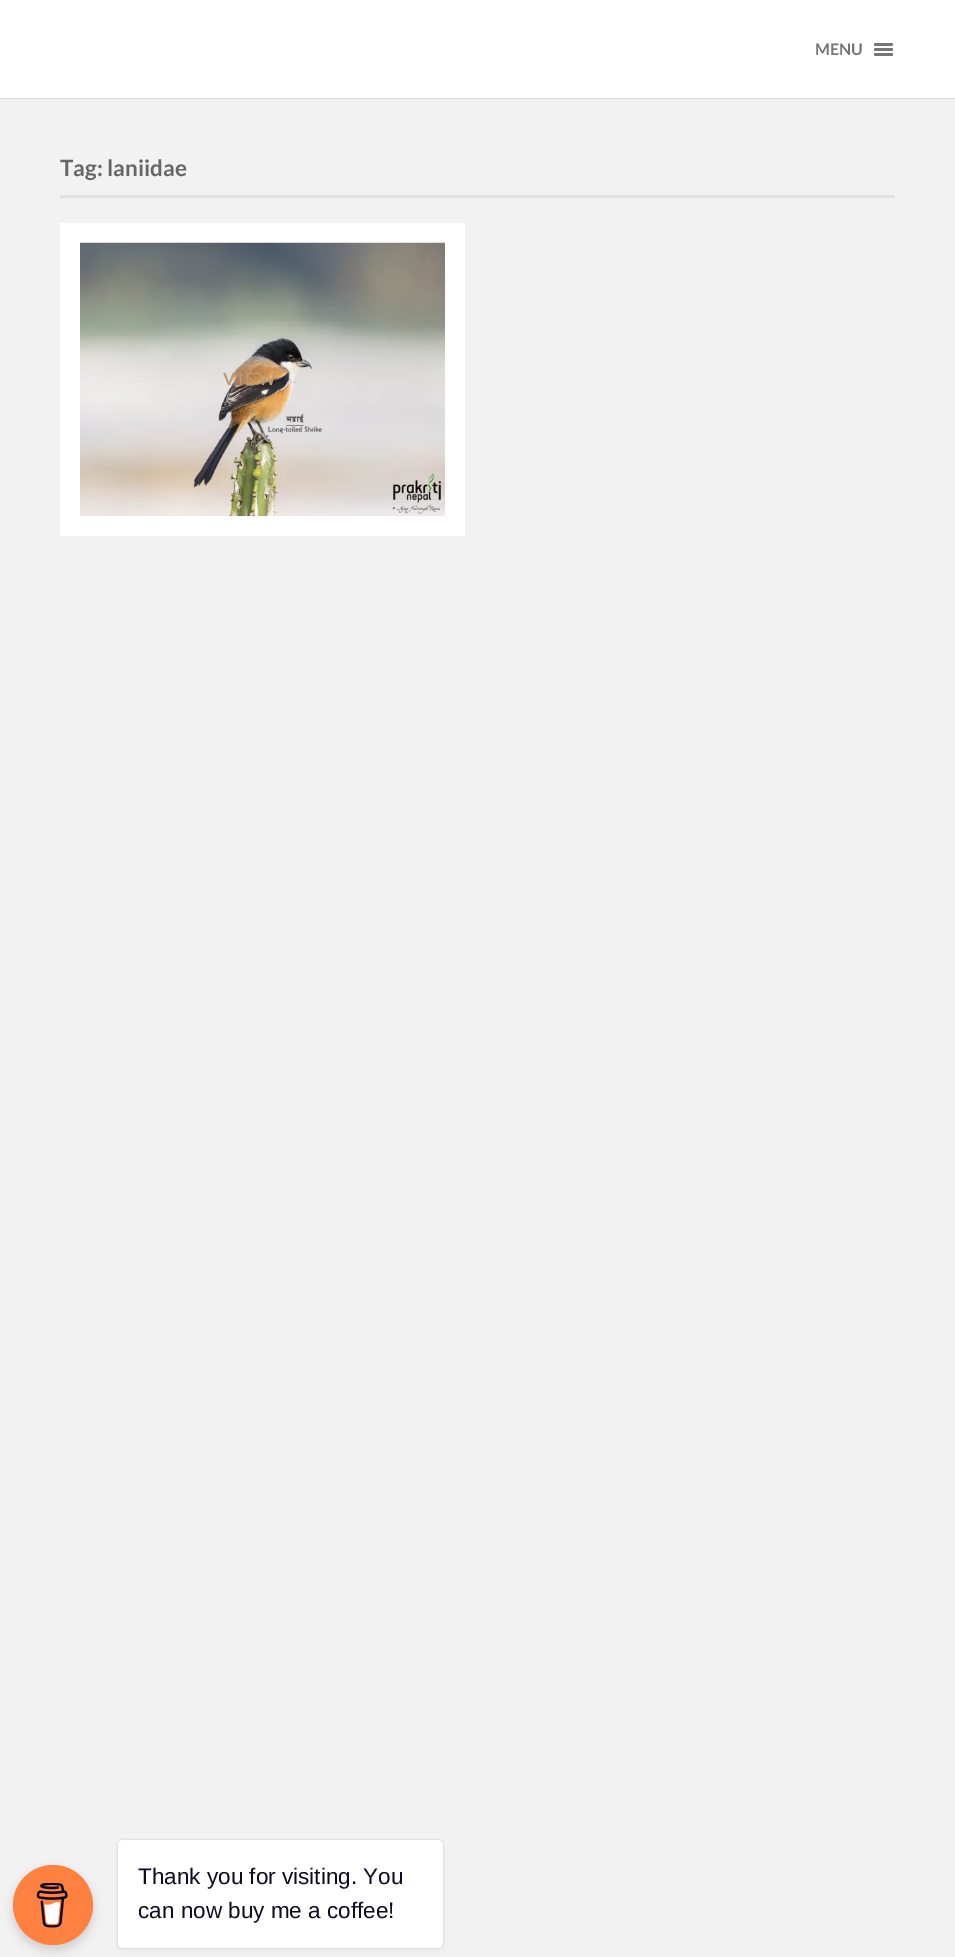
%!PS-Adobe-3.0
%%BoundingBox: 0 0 955 1957
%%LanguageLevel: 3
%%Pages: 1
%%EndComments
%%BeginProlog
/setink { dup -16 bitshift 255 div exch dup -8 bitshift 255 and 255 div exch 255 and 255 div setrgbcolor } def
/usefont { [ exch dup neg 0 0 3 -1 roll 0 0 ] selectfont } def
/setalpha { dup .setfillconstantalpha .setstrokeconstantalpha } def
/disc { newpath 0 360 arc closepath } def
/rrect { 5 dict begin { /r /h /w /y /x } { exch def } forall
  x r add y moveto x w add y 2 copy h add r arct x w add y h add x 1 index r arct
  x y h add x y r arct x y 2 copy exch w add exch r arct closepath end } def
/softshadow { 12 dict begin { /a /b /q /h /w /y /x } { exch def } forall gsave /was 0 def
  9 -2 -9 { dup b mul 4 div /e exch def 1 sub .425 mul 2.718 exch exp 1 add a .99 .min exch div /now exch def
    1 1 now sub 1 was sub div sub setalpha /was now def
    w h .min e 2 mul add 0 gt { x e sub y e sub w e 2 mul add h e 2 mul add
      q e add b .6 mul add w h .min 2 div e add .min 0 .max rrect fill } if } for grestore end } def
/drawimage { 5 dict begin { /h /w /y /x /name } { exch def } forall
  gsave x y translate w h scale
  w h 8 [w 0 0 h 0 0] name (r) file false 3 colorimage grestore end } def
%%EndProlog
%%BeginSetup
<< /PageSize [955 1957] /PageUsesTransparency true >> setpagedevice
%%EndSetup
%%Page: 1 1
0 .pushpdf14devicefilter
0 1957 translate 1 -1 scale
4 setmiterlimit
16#F2F2F2 setink
0 0 955 1957 rectfill
16#FFFFFF setink
0 0 955 98 rectfill
16#DDDDDD setink
0 98 955 1 rectfill
/Lato-Bold 16 usefont
16#767676 setink
815 55 moveto (MENU) show
874 43 19 3 1.5 rrect fill
874 48 19 3 1.5 rrect fill
874 53 19 3 1.5 rrect fill
16#E1E1E1 setink
60 195 835 3 rectfill
/Lato-Bold 22.5 usefont
16#666666 setink
60 176 moveto (Tag: laniidae) show
16#FFFFFF setink
60 223 405 313 rectfill
(img1.raw) 80 242 365 275 drawimage
/Lato-Bold 17 usefont
16#BD9873 setink
223 385 moveto 2.5 0 (VIEW) ashow
/LiberationSans-Bold 17 usefont
16#D3CCCA setink
283 385 moveto 2.5 0 (→) ashow
16#000000 setink
13 1870 80 80 40 5 0.15 softshadow
16#FF813F setink
53 1905 40 disc fill
(img2.raw) 36 1883 32 45 drawimage
16#000000 setink
118 1840 325 108 5 1 0.15 softshadow
118 1843 325 107 5 3 0.05 softshadow
16#FFFFFF setink
118 1840 325 108 5 rrect fill
/LiberationSans-Regular 22.5 usefont
16#0D0C22 setink
138 1884 moveto (Thank you for visiting. You) show
138 1918 moveto (can now buy me a coffee!) show
.poppdf14devicefilter showpage
%%EOF
